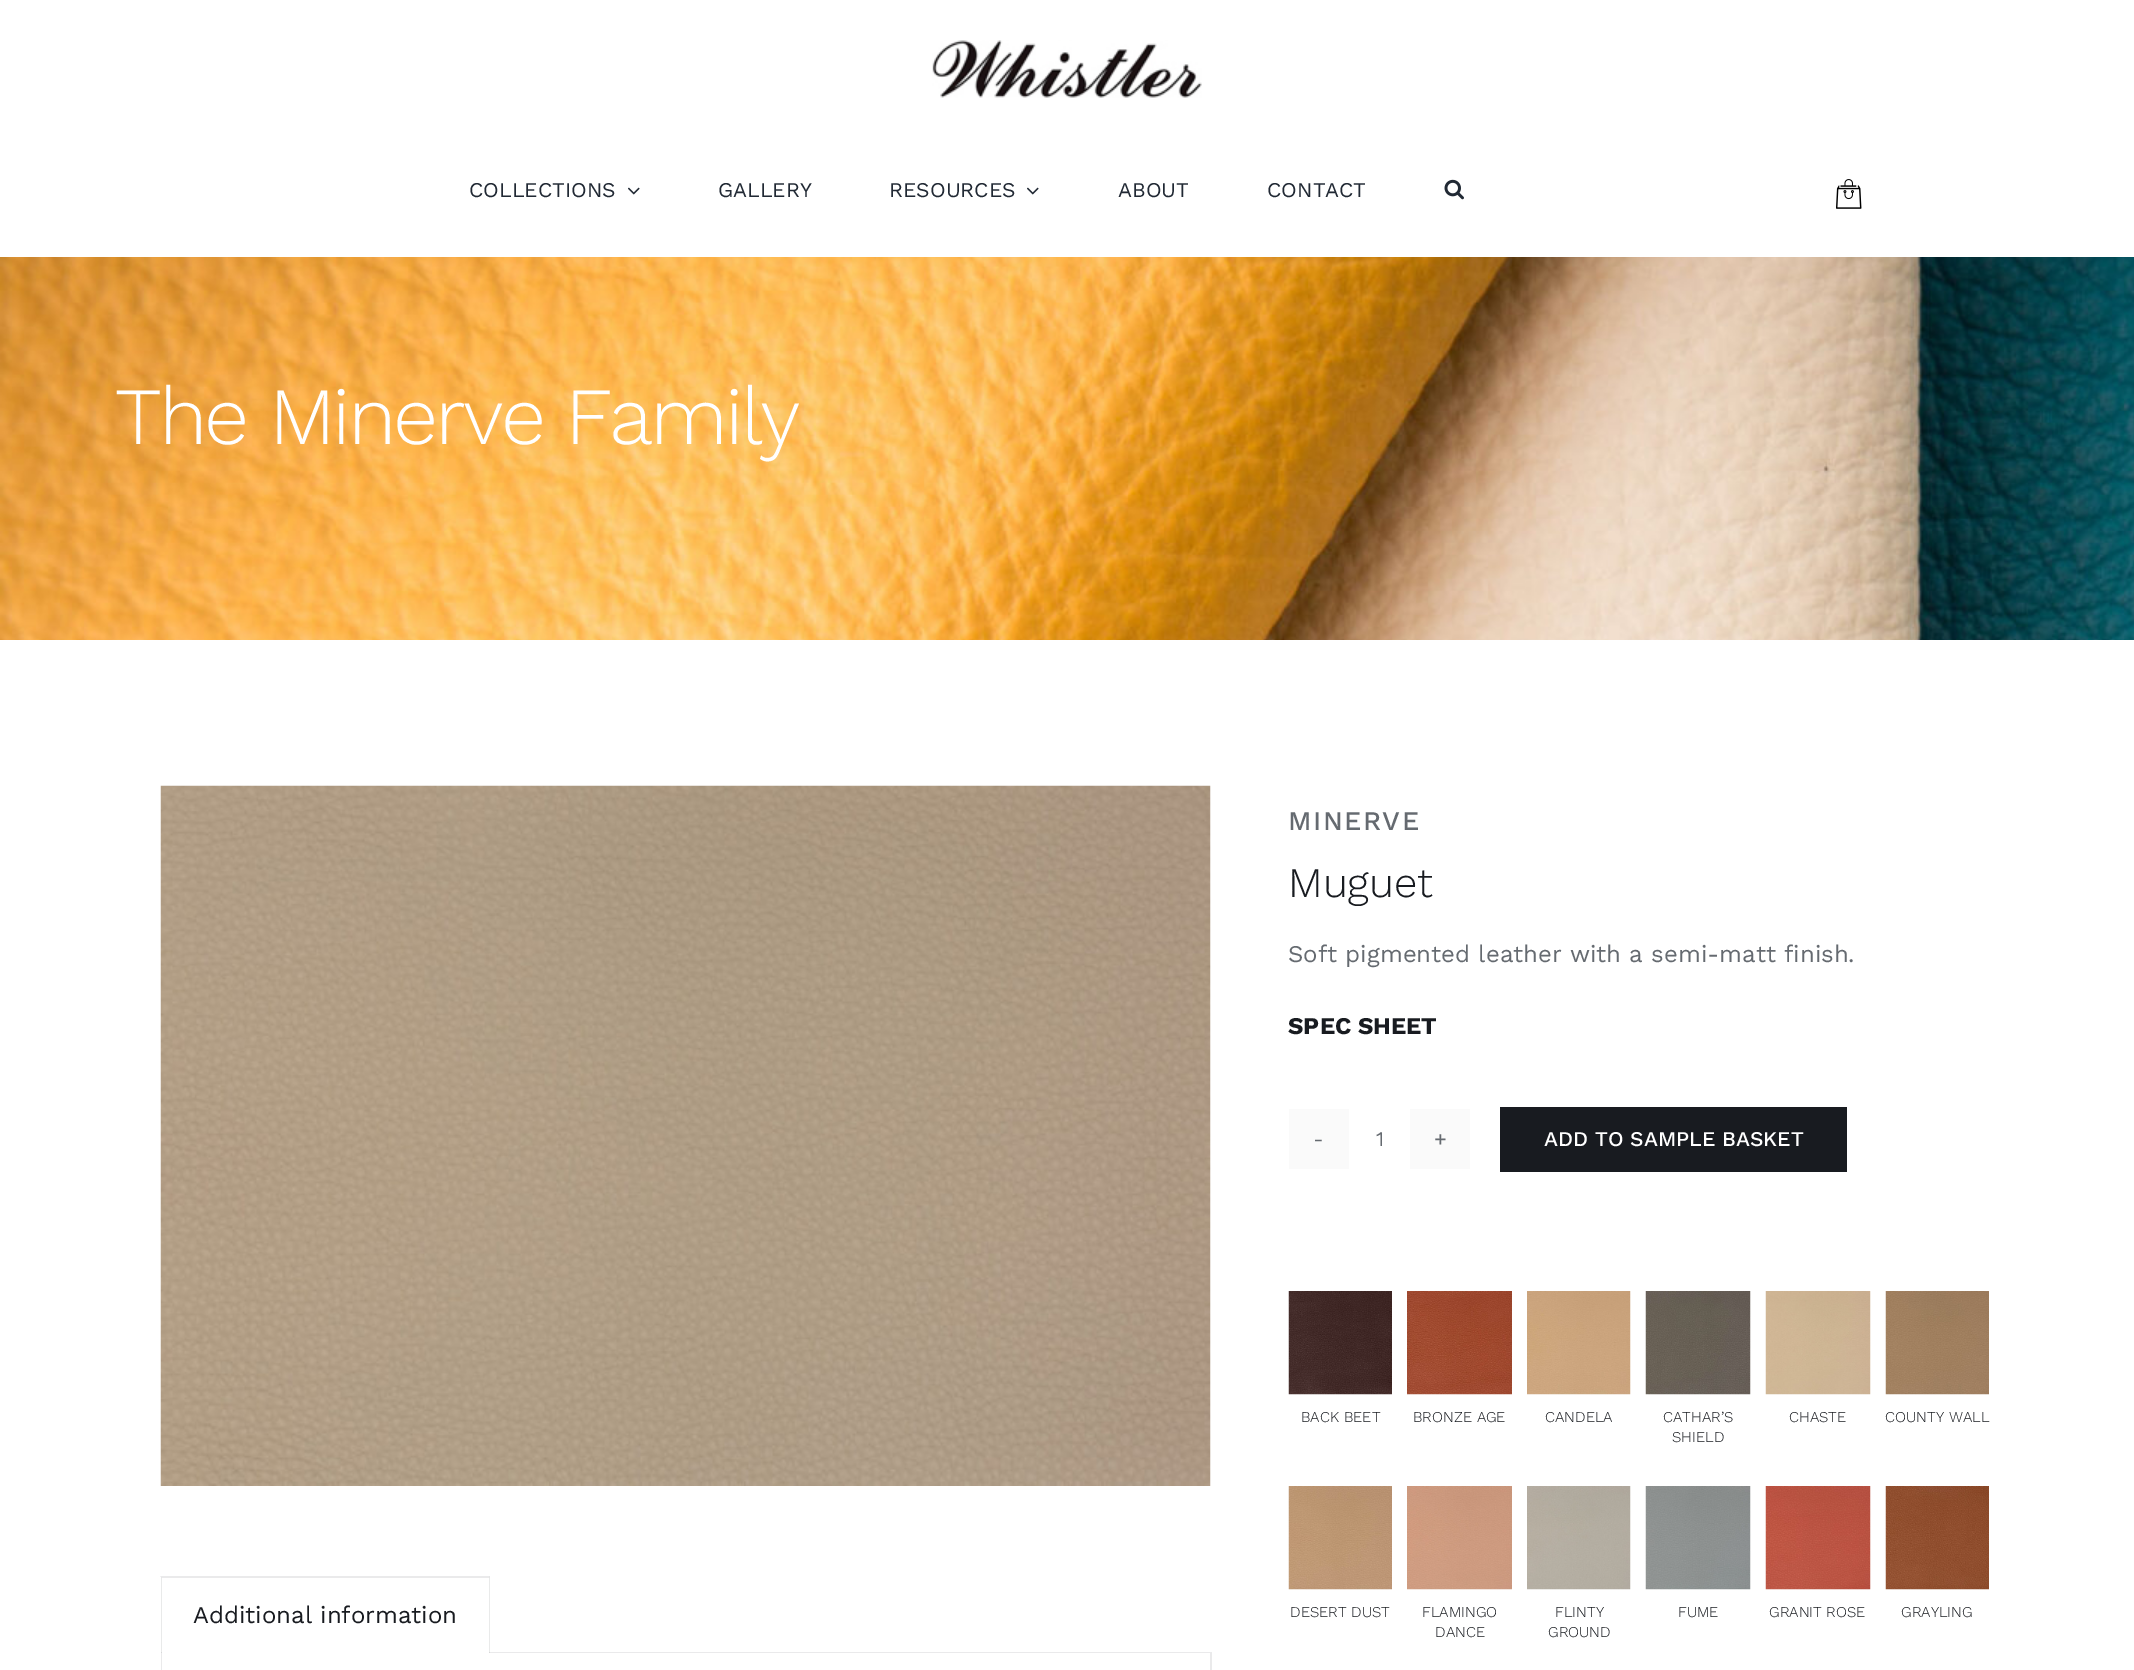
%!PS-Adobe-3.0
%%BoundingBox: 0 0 2134 1670
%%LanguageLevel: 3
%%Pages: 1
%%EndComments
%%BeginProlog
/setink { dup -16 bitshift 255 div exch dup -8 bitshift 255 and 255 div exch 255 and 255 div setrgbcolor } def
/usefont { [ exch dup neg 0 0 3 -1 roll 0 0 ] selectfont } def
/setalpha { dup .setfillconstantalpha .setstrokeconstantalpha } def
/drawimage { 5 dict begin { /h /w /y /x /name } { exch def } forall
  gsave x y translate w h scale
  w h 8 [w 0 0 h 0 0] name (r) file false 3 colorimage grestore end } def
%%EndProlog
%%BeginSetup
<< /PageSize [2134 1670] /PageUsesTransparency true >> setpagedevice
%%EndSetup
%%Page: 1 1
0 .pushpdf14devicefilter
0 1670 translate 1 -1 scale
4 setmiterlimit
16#FFFFFF setink
0 0 2134 1670 rectfill
(img1.raw) 932 40 270 58 drawimage
/WorkSans-Regular 21 usefont
16#212934 setink
469 197 moveto (COLLECTIONS) show
(img2.raw) 628 187 12 8 drawimage
718 197 moveto (GALLERY) show
889 197 moveto (RESOURCES) show
(img2.raw) 1027 187 12 8 drawimage
1118 197 moveto (ABOUT) show
1267 197 moveto (CONTACT) show
(img3.raw) 1444 179 20 21 drawimage
(img4.raw) 1836 179 26 30 drawimage
(img5.raw) 0 257 2134 383 drawimage
/WorkSans-Light 81 usefont
16#FFFFFF setink
115 444 moveto -3 0 (The Minerve Family) ashow
(img6.raw) 160 785 1051 701 drawimage
16#EAEAEB setink
161 1652 1051 1 rectfill
160 1576 moveto 490 1576 lineto 489 1578 lineto 162 1578 lineto closepath fill
0.1 setalpha
16#282D33 setink
490 1576 moveto 490 1653 lineto 489 1653 lineto 489 1578 lineto closepath fill
gsave
161 1487 1051 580 rectclip
160 1653 moveto 160 1576 lineto 162 1578 lineto 162 1653 lineto closepath fill
grestore
1 setalpha
16#FFFFFF setink
162 1652 327 1 rectfill
/WorkSans-Regular 24 usefont
16#181B20 setink
193 1623 moveto (Additional information) show
16#EAEAEB setink
1212 1653 moveto 1212 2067 lineto 1210 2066 lineto 1210 1653 lineto closepath fill
gsave
161 1487 1051 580 rectclip
160 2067 moveto 160 1653 lineto 162 1653 lineto 162 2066 lineto closepath fill
grestore
/WorkSans-Medium 27 usefont
16#656A70 setink
1288 830 moveto 1.5 0 (MINERVE) ashow
/WorkSans-Light 42 usefont
16#181B20 setink
1288 897 moveto (Muguet) show
/WorkSans-Regular 24 usefont
16#656A70 setink
1288 962 moveto (Soft pigmented leather with a semi-matt finish.) show
/WorkSans-Bold 24 usefont
16#181B20 setink
1288 1034 moveto (SPEC SHEET) show
16#FAFAFA setink
1289 1109 60 60 rectfill
/WorkSans-Regular 21 usefont
16#656A70 setink
1313 1146 moveto (-) show
1376 1146 moveto (1) show
16#FAFAFA setink
1410 1109 60 60 rectfill
16#656A70 setink
1434 1146 moveto (+) show
16#181B20 setink
1500 1107 347 65 rectfill
/WorkSans-Medium 21 usefont
16#FFFFFF setink
1544 1146 moveto (ADD TO SAMPLE BASKET) show
(img7.raw) 1288 1291 104 104 drawimage
/WorkSans-Light 15 usefont
16#181B20 setink
1301 1422 moveto (BACK BEET) show
(img8.raw) 1407 1291 105 104 drawimage
1413 1422 moveto (BRONZE AGE) show
(img9.raw) 1527 1291 104 104 drawimage
1545 1422 moveto (CANDELA) show
(img10.raw) 1645 1291 106 104 drawimage
1663 1422 moveto (CATHAR’S) show
1672 1442 moveto (SHIELD) show
(img11.raw) 1765 1291 106 104 drawimage
1789 1422 moveto (CHASTE) show
(img12.raw) 1885 1291 104 104 drawimage
1885 1422 moveto (COUNTY WALL) show
(img13.raw) 1288 1486 104 104 drawimage
1290 1617 moveto (DESERT DUST) show
(img14.raw) 1407 1486 105 104 drawimage
1422 1617 moveto (FLAMINGO) show
1435 1637 moveto (DANCE) show
(img15.raw) 1527 1486 104 104 drawimage
1555 1617 moveto (FLINTY) show
1548 1637 moveto (GROUND) show
(img16.raw) 1645 1486 106 104 drawimage
1678 1617 moveto (FUME) show
(img17.raw) 1765 1486 106 104 drawimage
1769 1617 moveto (GRANIT ROSE) show
(img18.raw) 1885 1486 104 104 drawimage
1901 1617 moveto (GRAYLING) show
.poppdf14devicefilter showpage
%%EOF
